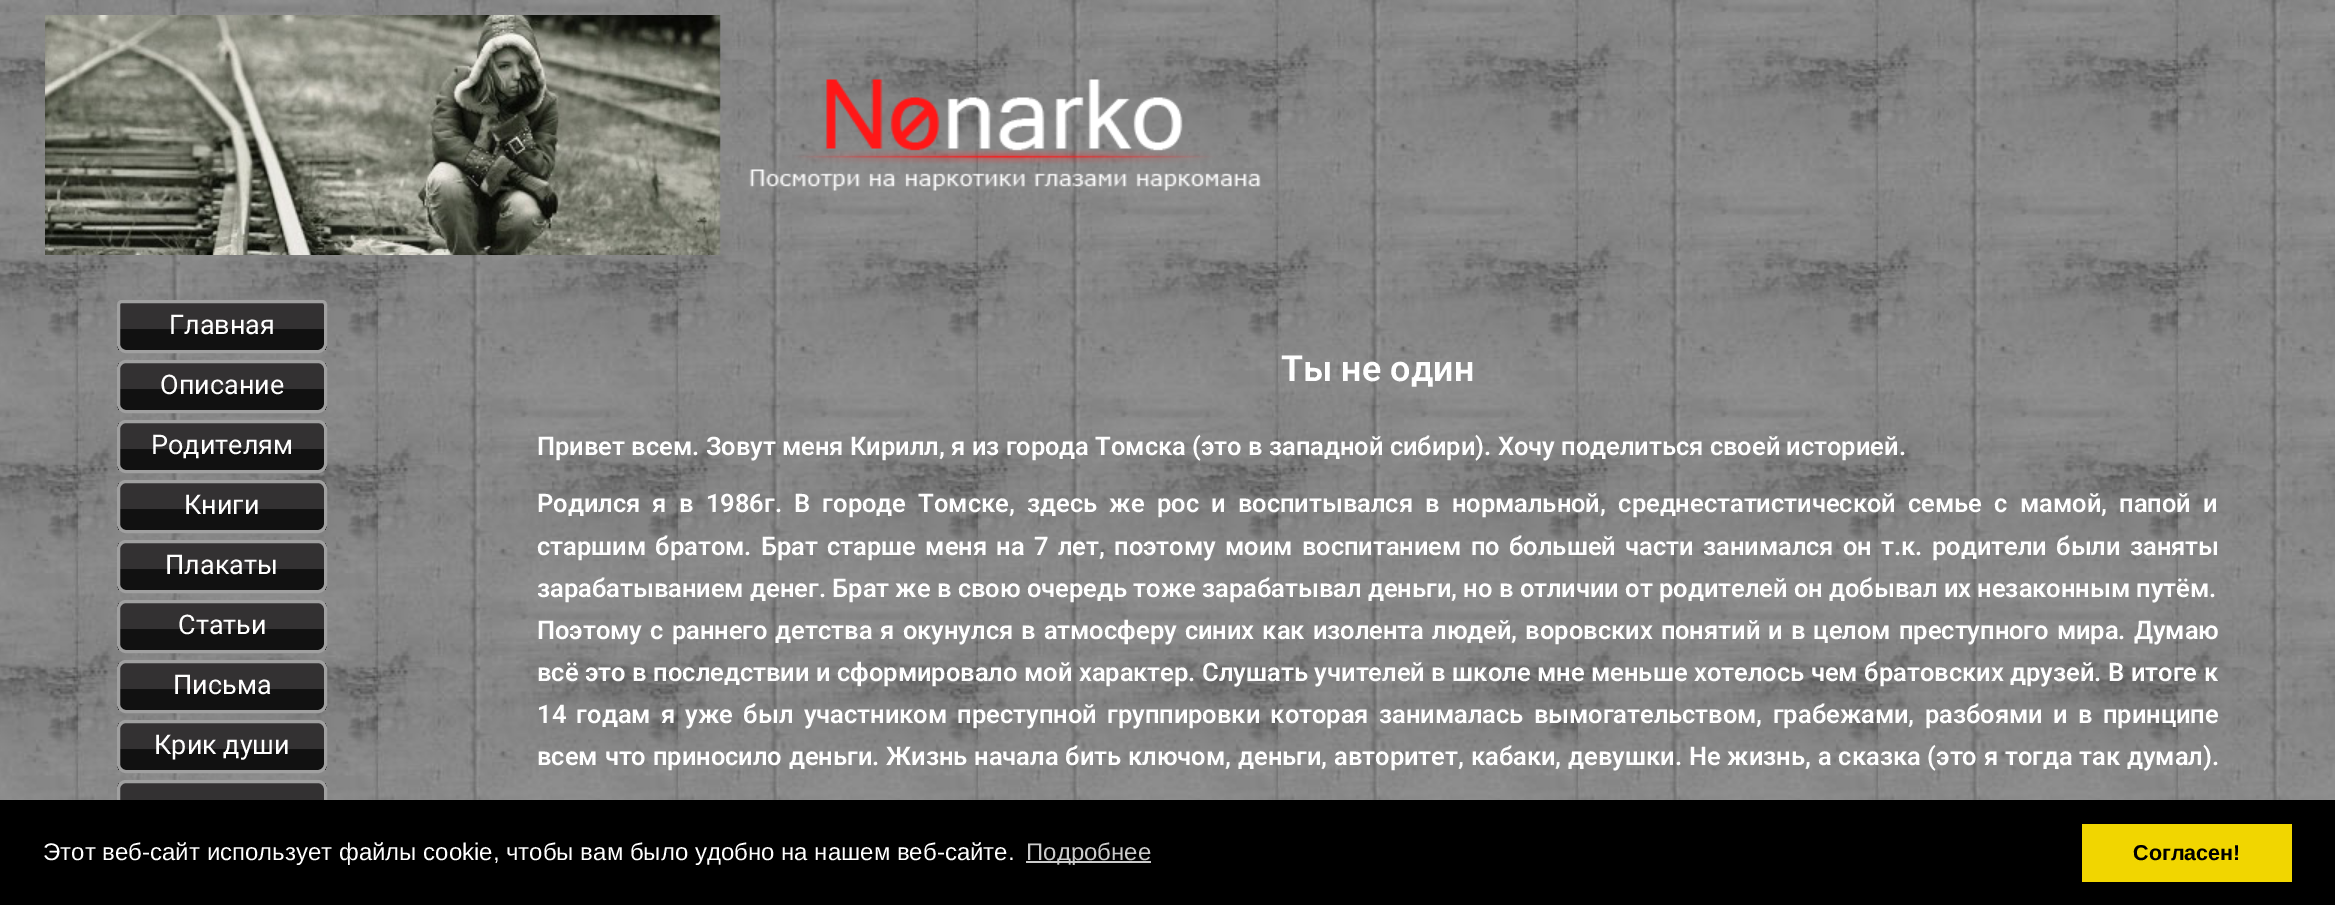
%!PS-Adobe-3.0
%%BoundingBox: 0 0 2335 905
%%LanguageLevel: 3
%%Pages: 1
%%EndComments
%%BeginProlog
/setink { dup -16 bitshift 255 div exch dup -8 bitshift 255 and 255 div exch 255 and 255 div setrgbcolor } def
/usefont { [ exch dup neg 0 0 3 -1 roll 0 0 ] selectfont } def
/rrect { 5 dict begin { /r /h /w /y /x } { exch def } forall
  x r add y moveto x w add y 2 copy h add r arct x w add y h add x 1 index r arct
  x y h add x y r arct x y 2 copy exch w add exch r arct closepath end } def
/drawimage { 5 dict begin { /h /w /y /x /name } { exch def } forall
  gsave x y translate w h scale
  w h 8 [w 0 0 h 0 0] name (r) file false 3 colorimage grestore end } def
%%EndProlog
%%BeginSetup
<< /PageSize [2335 905] >> setpagedevice
%%EndSetup
%%Page: 1 1
0 905 translate 1 -1 scale
4 setmiterlimit
16#FFFFFF setink
0 0 2335 905 rectfill
(img1.raw) 0 0 2335 800 drawimage
(img2.raw) 45 15 1216 240 drawimage
gsave
122 300 moveto 322 300 lineto 325 300 327 302 327 305 curveto 327 344 lineto 327 349 323 353 318 353 curveto 126 353 lineto 121 353 117 349 117 344 curveto 117 305 lineto 117 302 119 300 122 300 curveto closepath clip newpath
16#111111 setink
117 329 210 21 rectfill
grestore
16#333132 setink
117 303 210 26 rectfill
16#A0A0A0 setink
3 setlinewidth
122 301.5 moveto 322 301.5 lineto 324 301.5 325.5 303 325.5 305 curveto 325.5 344 lineto 325.5 348 322 351.5 318 351.5 curveto 126 351.5 lineto 122 351.5 118.5 348 118.5 344 curveto 118.5 305 lineto 118.5 303 120 301.5 122 301.5 curveto closepath stroke
/Roboto-Regular 27 usefont
16#FFFFFF setink
169 334 moveto (Главная) show
gsave
117 360 210 53 9 rrect clip newpath
16#111111 setink
117 389 210 21 rectfill
16#333132 setink
117 363 210 26 rectfill
grestore
16#A0A0A0 setink
118.5 361.5 207 50 7.5 rrect stroke
16#FFFFFF setink
160 394 moveto (Описание) show
gsave
117 420 210 53 9 rrect clip newpath
16#111111 setink
117 449 210 21 rectfill
16#333132 setink
117 423 210 26 rectfill
grestore
16#A0A0A0 setink
118.5 421.5 207 50 7.5 rrect stroke
16#FFFFFF setink
151 454 moveto (Родителям) show
gsave
117 480 210 53 9 rrect clip newpath
16#111111 setink
117 509 210 21 rectfill
16#333132 setink
117 483 210 26 rectfill
grestore
16#A0A0A0 setink
118.5 481.5 207 50 7.5 rrect stroke
16#FFFFFF setink
184 514 moveto (Книги) show
gsave
117 540 210 53 9 rrect clip newpath
16#111111 setink
117 569 210 21 rectfill
16#333132 setink
117 543 210 26 rectfill
grestore
16#A0A0A0 setink
118.5 541.5 207 50 7.5 rrect stroke
16#FFFFFF setink
165 574 moveto (Плакаты) show
gsave
117 600 210 53 9 rrect clip newpath
16#111111 setink
117 629 210 21 rectfill
16#333132 setink
117 603 210 26 rectfill
grestore
16#A0A0A0 setink
118.5 601.5 207 50 7.5 rrect stroke
16#FFFFFF setink
178 634 moveto (Статьи) show
gsave
117 660 210 53 9 rrect clip newpath
16#111111 setink
117 689 210 21 rectfill
16#333132 setink
117 663 210 26 rectfill
grestore
16#A0A0A0 setink
118.5 661.5 207 50 7.5 rrect stroke
16#FFFFFF setink
173 694 moveto (Письма) show
gsave
117 720 210 53 9 rrect clip newpath
16#111111 setink
117 749 210 21 rectfill
16#333132 setink
117 723 210 26 rectfill
grestore
16#A0A0A0 setink
118.5 721.5 207 50 7.5 rrect stroke
16#FFFFFF setink
154 754 moveto (Крик души) show
gsave
117 780 210 53 9 rrect clip newpath
16#333132 setink
117 783 210 17 rectfill
grestore
16#A0A0A0 setink
118.5 781.5 207 50 7.5 rrect stroke
/Roboto-SemiBold 36 usefont
16#FFFFFF setink
1281 381 moveto (Ты не один) show
/Roboto-SemiBold 25.5 usefont
537 455 moveto (Привет всем. Зовут меня Кирилл, я из города Томска \(это в западной сибири\). Хочу поделиться своей историей.) show
537 512 moveto 5.9 0 32 (Родился я в 1986г. В городе Томске, здесь же рос и воспитывался в нормальной, среднестатистической семье с мамой, папой и) widthshow
537 555 moveto 3 0 32 (старшим братом. Брат старше меня на 7 лет, поэтому моим воспитанием по большей части занимался он т.к. родители были заняты) widthshow
537 597 moveto (зарабатыванием денег. Брат же в свою очередь тоже зарабатывал деньги, но в отличии от родителей он добывал их незаконным путём.) show
537 639 moveto 1.75 0 32 (Поэтому с раннего детства я окунулся в атмосферу синих как изолента людей, воровских понятий и в целом преступного мира. Думаю) widthshow
537 681 moveto 0.25 0 32 (всё это в последствии и сформировало мой характер. Слушать учителей в школе мне меньше хотелось чем братовских друзей. В итоге к) widthshow
537 723 moveto 4 0 32 (14 годам я уже был участником преступной группировки которая занималась вымогательством, грабежами, разбоями и в принципе) widthshow
537 765 moveto 0.5 0 32 (всем что приносило деньги. Жизнь начала бить ключом, деньги, авторитет, кабаки, девушки. Не жизнь, а сказка \(это я тогда так думал\).) widthshow
16#000000 setink
0 800 2335 105 rectfill
/LiberationSans-Regular 24 usefont
16#FFFFFF setink
43 860 moveto (Этот веб-сайт использует файлы cookie, чтобы вам было удобно на нашем веб-сайте.) show
16#CCCCCC setink
1026 861 125 2 rectfill
1026 860 moveto (Подробнее) show
16#F1D600 setink
2082 824 210 58 rectfill
/LiberationSans-Bold 21.5 usefont
16#000000 setink
2133 860 moveto (Согласен!) show
showpage
%%EOF
